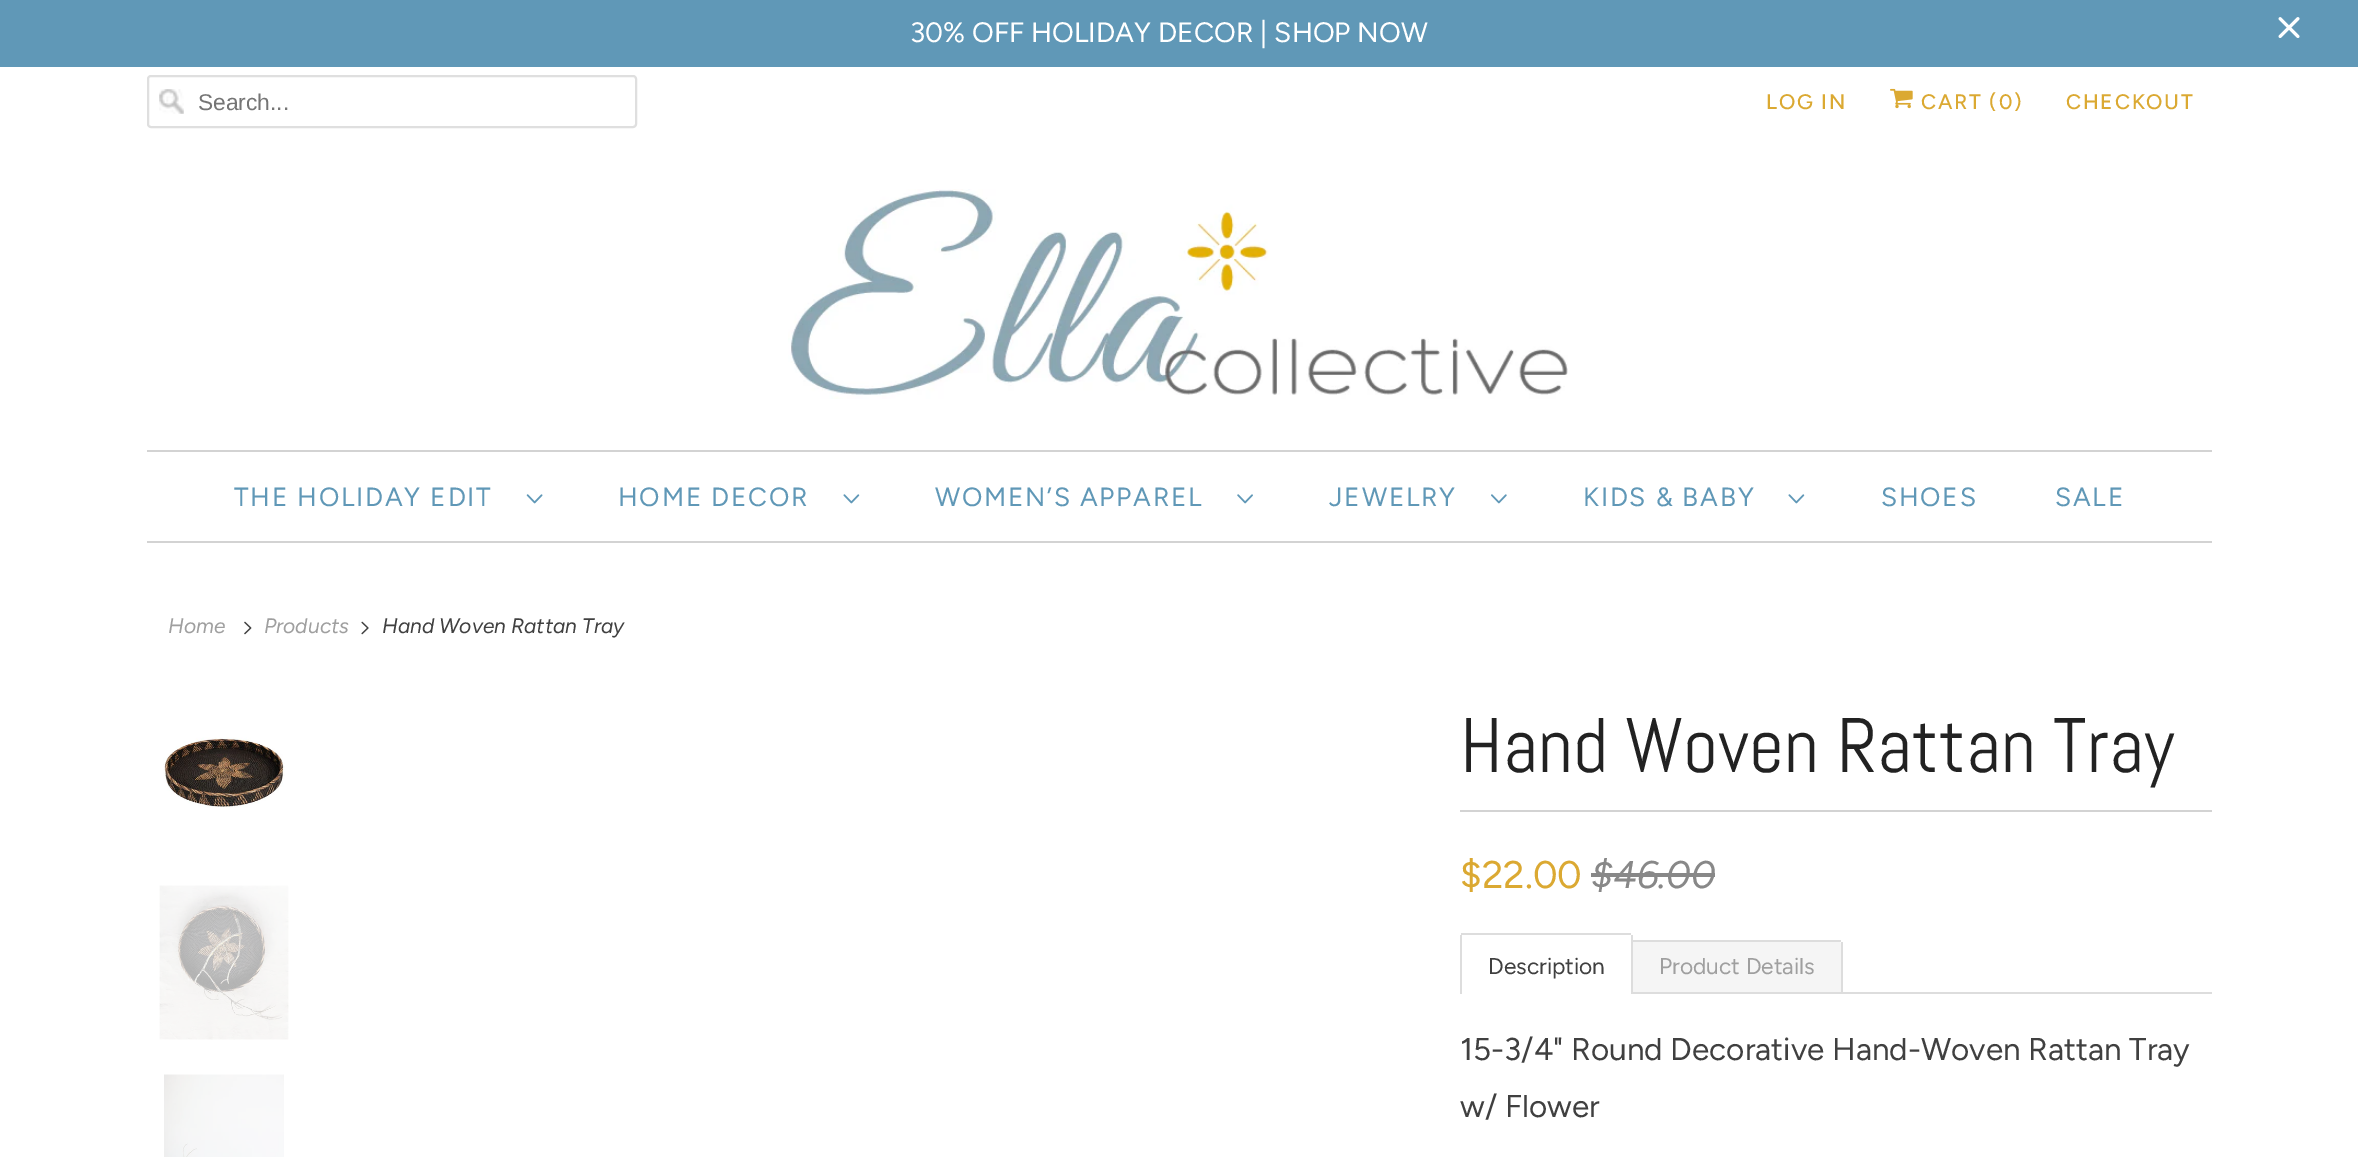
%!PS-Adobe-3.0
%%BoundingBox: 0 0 2358 1157
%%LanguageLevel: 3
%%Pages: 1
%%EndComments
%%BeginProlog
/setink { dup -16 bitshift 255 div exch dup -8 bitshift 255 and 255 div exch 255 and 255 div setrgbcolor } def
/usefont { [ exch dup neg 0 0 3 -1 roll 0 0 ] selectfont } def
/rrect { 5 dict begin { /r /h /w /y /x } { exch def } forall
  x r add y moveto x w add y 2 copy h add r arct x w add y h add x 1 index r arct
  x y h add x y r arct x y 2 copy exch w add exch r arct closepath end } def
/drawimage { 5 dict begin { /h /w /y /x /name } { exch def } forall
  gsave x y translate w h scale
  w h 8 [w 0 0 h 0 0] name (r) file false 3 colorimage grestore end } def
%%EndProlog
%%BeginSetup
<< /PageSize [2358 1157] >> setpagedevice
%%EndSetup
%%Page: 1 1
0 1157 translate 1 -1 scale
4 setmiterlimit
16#FFFFFF setink
0 0 2358 1157 rectfill
16#6098B7 setink
0 0 2358 67 rectfill
/Figtree-Regular 28 usefont
16#FFFFFF setink
910 42 moveto (30% OFF HOLIDAY DECOR | SHOP NOW) show
(img1.raw) 2278 17 22 21 drawimage
(img2.raw) 159 89 25 25 drawimage
16#DFDFDF setink
2 setlinewidth
148 76 488 51 3 rrect stroke
/LiberationSans-Regular 22.75 usefont
16#757575 setink
198 110 moveto (Search...) show
/Figtree-Medium 21 usefont
16#DBA932 setink
1766 109 moveto 1.75 0 (LOG IN) ashow
(img3.raw) 1890 88 23 21 drawimage
1921 109 moveto 1.75 0 (CART \(0\)) ashow
2066 109 moveto 1.75 0 (CHECKOUT) ashow
(img4.raw) 788 189 780 210 drawimage
16#D3D3D3 setink
147 450 2065 2 rectfill
147 541 2065 2 rectfill
/Figtree-Regular 26.25 usefont
16#6098B7 setink
234 506 moveto 1.75 0 (THE HOLIDAY EDIT) ashow
(img5.raw) 526 494 17 10 drawimage
618 506 moveto 1.75 0 (HOME DECOR) ashow
(img6.raw) 843 494 17 10 drawimage
935 506 moveto 1.75 0 (WOMEN’S APPAREL) ashow
(img7.raw) 1237 494 16 10 drawimage
1329 506 moveto 1.75 0 (JEWELRY) ashow
(img8.raw) 1491 494 16 10 drawimage
1583 506 moveto 1.75 0 (KIDS & BABY) ashow
(img6.raw) 1788 494 17 10 drawimage
1881 506 moveto 1.75 0 (SHOES) ashow
2055 506 moveto 1.75 0 (SALE) ashow
/Figtree-Italic 21 usefont
16#9F9F9F setink
168 633 moveto (Home) show
(img9.raw) 244 621 8 14 drawimage
264 633 moveto (Products) show
(img10.raw) 361 621 8 14 drawimage
16#404040 setink
382 633 moveto (Hand Woven Rattan Tray) show
(img11.raw) 163 737 122 71 drawimage
(img12.raw) 159 885 130 155 drawimage
(img13.raw) 164 1074 120 83 drawimage
16#D3D3D3 setink
1460 810 752 2 rectfill
/Abel-Regular 77 usefont
16#222222 setink
1460 772 moveto (Hand Woven Rattan Tray) show
/Figtree-Regular 38.5 usefont
16#DBA932 setink
1460 888 moveto ($22.00) show
/Figtree-Italic 38.5 usefont
16#888888 setink
1591 888 moveto ($46.00) show
[
    [1591 873 124 4 16#888888]
    [1633 992 579 2 16#DDDDDD]
    [1461 933 170 2 16#DDDDDD]
    [1631 940 210 2 16#DDDDDD]
    [1631 935 2 59 16#DDDDDD]
    [1460 935 2 59 16#DDDDDD]
] { aload pop setink rectfill } forall
/Figtree-Regular 22.75 usefont
16#404040 setink
1488 974 moveto (Description) show
16#F5F5F5 setink
1633 942 moveto 1839 942 lineto 1840 942 1841 943 1841 944 curveto 1841 992 lineto 1633 992 lineto closepath fill
16#DDDDDD setink
1841 942 2 50 rectfill
16#9F9F9F setink
1659 974 moveto (Product Details) show
/Figtree-Regular 31.5 usefont
16#404040 setink
1460 1060 moveto (15-3/4" Round Decorative Hand-Woven Rattan Tray) show
1460 1117 moveto (w/ Flower) show
showpage
%%EOF
